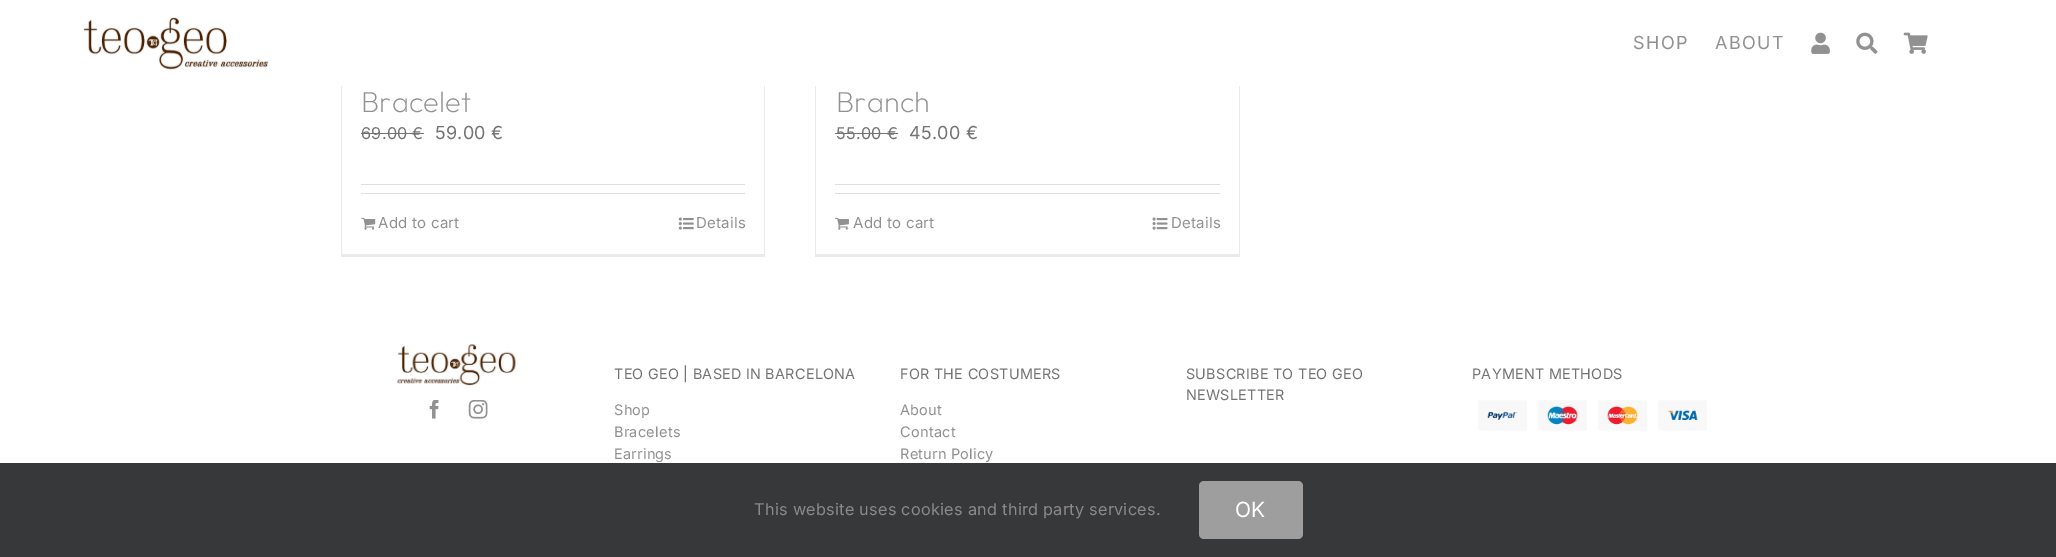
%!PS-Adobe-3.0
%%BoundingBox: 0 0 2056 557
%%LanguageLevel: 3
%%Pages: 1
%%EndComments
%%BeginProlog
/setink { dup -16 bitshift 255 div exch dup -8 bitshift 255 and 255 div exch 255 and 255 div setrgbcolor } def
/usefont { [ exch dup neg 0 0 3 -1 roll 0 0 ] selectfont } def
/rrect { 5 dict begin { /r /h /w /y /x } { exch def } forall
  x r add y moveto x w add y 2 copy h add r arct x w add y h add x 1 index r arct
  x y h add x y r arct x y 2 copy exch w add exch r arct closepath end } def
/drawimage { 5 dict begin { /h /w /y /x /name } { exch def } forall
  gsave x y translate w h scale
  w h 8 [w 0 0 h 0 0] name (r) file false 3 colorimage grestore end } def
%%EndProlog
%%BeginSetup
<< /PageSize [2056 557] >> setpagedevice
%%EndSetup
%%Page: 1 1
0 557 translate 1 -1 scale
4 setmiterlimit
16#FFFFFF setink
0 0 2056 557 rectfill
(img1.raw) 83 17 186 53 drawimage
/Inter-Regular 18 usefont
16#919191 setink
1633 49 moveto 1.5 0 (SHOP) ashow
1715 49 moveto 1.5 0 (ABOUT) ashow
(img2.raw) 1811 32 19 22 drawimage
(img3.raw) 1856 32 22 22 drawimage
(img4.raw) 1903 32 25 22 drawimage
[
    [764 86 1 170 16#EBEAEA]
    [341 254 424 3 16#EBEAEA]
    [341 86 1 170 16#EBEAEA]
] { aload pop setink rectfill } forall
/Outfit-ExtraLight 29 usefont
16#919191 setink
361 112 moveto 0.27 0 (Bracelet) ashow
/Inter-Regular 16.25 usefont
16#747474 setink
361 139 moveto 0.27 0 (69.00) ashow
361 133 52 1 rectfill
412 139 moveto 0.27 0 (€) ashow
413 133 11 1 rectfill
/Inter-Regular 18 usefont
435 139 moveto 0.27 0 (59.00 €) ashow
16#E0DEDE setink
361 184 384 1 rectfill
361 193 384 1 rectfill
(img5.raw) 361 217 15 13 drawimage
/Inter-Regular 15 usefont
16#919191 setink
378 228 moveto 0.27 0 (Add to cart) ashow
(img6.raw) 678 217 16 13 drawimage
696 228 moveto 0.27 0 (Details) ashow
[
    [1239 86 1 170 16#EBEAEA]
    [815 254 425 3 16#EBEAEA]
    [815 86 1 170 16#EBEAEA]
] { aload pop setink rectfill } forall
/Outfit-ExtraLight 29 usefont
16#919191 setink
836 112 moveto 0.27 0 (Branch) ashow
/Inter-Regular 16.25 usefont
16#747474 setink
836 139 moveto 0.27 0 (55.00 €) ashow
835 133 63 1 rectfill
/Inter-Regular 18 usefont
909 139 moveto 0.27 0 (45.00 €) ashow
16#E0DEDE setink
835 184 385 1 rectfill
835 193 385 1 rectfill
(img7.raw) 835 217 14 13 drawimage
/Inter-Regular 15 usefont
16#919191 setink
853 228 moveto 0.27 0 (Add to cart) ashow
(img8.raw) 1152 217 16 13 drawimage
1171 228 moveto 0.27 0 (Details) ashow
(img9.raw) 397 344 119 42 drawimage
(img10.raw) 429 400 10 19 drawimage
(img11.raw) 468 400 20 19 drawimage
/Inter-Regular 14.4 usefont
16#747474 setink
614 379 moveto 0.25 0 (TEO GEO | BASED IN BARCELONA) ashow
/Inter-Regular 14.5 usefont
16#919191 setink
614 415 moveto 0.25 0 (Shop) ashow
614 437 moveto 0.25 0 (Bracelets) ashow
614 459 moveto 0.25 0 (Earrings) ashow
/Inter-Regular 14.4 usefont
16#747474 setink
900 379 moveto 0.25 0 (FOR THE COSTUMERS) ashow
/Inter-Regular 14.5 usefont
16#919191 setink
900 415 moveto 0.25 0 (About) ashow
900 437 moveto 0.25 0 (Contact) ashow
900 459 moveto 0.25 0 (Return Policy) ashow
/Inter-Regular 14.4 usefont
16#747474 setink
1186 379 moveto 0.25 0 (SUBSCRIBE TO TEO GEO) ashow
1186 400 moveto 0.25 0 (NEWSLETTER) ashow
1472 379 moveto 0.25 0 (PAYMENT METHODS) ashow
(img12.raw) 1478 400 49 31 drawimage
(img13.raw) 1538 400 49 31 drawimage
(img14.raw) 1598 400 49 31 drawimage
(img15.raw) 1658 400 49 31 drawimage
16#363839 setink
0 463 2056 94 rectfill
/Inter-Regular 16.25 usefont
16#8C8989 setink
754 515 moveto 0.27 0 (This website uses cookies and third party services.) ashow
16#9E9E9E setink
1199 481 104 58 5 rrect fill
/Inter-Regular 21 usefont
16#FFFFFF setink
1235 517 moveto (OK) show
showpage
%%EOF
